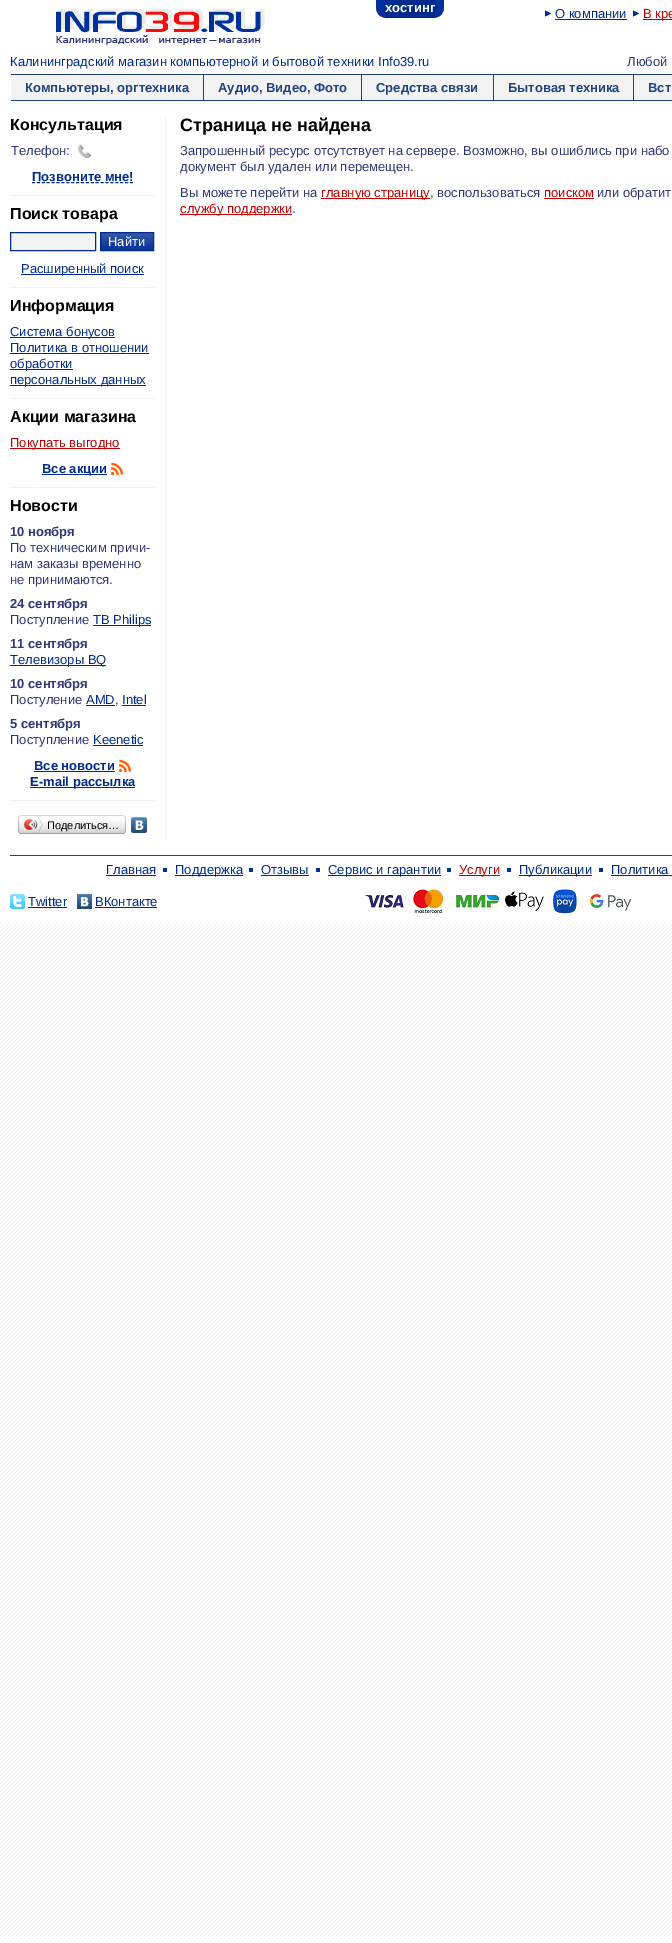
%!PS-Adobe-3.0
%%BoundingBox: 0 0 672 1943
%%LanguageLevel: 3
%%Pages: 1
%%EndComments
%%BeginProlog
/setink { dup -16 bitshift 255 div exch dup -8 bitshift 255 and 255 div exch 255 and 255 div setrgbcolor } def
/usefont { [ exch dup neg 0 0 3 -1 roll 0 0 ] selectfont } def
/drawimage { 5 dict begin { /h /w /y /x /name } { exch def } forall
  gsave x y translate w h scale
  w h 8 [w 0 0 h 0 0] name (r) file false 3 colorimage grestore end } def
%%EndProlog
%%BeginSetup
<< /PageSize [672 1943] >> setpagedevice
%%EndSetup
%%Page: 1 1
0 1943 translate 1 -1 scale
4 setmiterlimit
16#FFFFFF setink
0 0 672 1943 rectfill
(img1.raw) 0 921 672 1022 drawimage
16#002A8E setink
385 0 50 18 rectfill
(img2.raw) 376 0 9 18 drawimage
(img3.raw) 435 0 9 18 drawimage
/LiberationSans-Bold 13 usefont
16#FFFFFF setink
385 12 moveto (хостинг) show
(img4.raw) 56 8 209 37 drawimage
(img5.raw) 545 10 6 7 drawimage
/LiberationSans-Regular 13 usefont
16#002A8E setink
555 18 moveto (О компании) show
555 19 72 1 rectfill
(img5.raw) 633 10 6 7 drawimage
16#BE0000 setink
643 19 29 1 rectfill
643 18 moveto (В кре) show
16#002A8E setink
10 66 moveto (Калининградский магазин компьютерной и бытовой техники Info39.ru) show
16#2E3778 setink
627 66 moveto (Любой) show
[
    [11 75 192 25 16#F3F3F3]
    [11 74 661 1 16#1E4284]
    [11 100 661 1 16#1E4284]
] { aload pop setink rectfill } forall
/LiberationSans-Bold 13 usefont
25 92 moveto (Компьютеры, оргтехника) show
16#F3F3F3 setink
204 75 157 25 rectfill
16#1E4284 setink
203 75 1 25 rectfill
218 92 moveto (Аудио, Видео, Фото) show
16#F3F3F3 setink
362 75 131 25 rectfill
16#1E4284 setink
361 75 1 25 rectfill
376 92 moveto (Средства связи) show
16#F3F3F3 setink
494 75 139 25 rectfill
16#1E4284 setink
493 75 1 25 rectfill
508 92 moveto (Бытовая техника) show
16#F3F3F3 setink
634 75 38 25 rectfill
16#1E4284 setink
633 75 1 25 rectfill
648 92 moveto (Вст) show
16#F3F3F3 setink
165 117 1 722 rectfill
/LiberationSans-Bold 16 usefont
16#000000 setink
10 130 moveto (Консультация) show
/LiberationSans-Regular 13 usefont
16#2E3778 setink
11 155 moveto (Телефон:) show
(img6.raw) 77 144 15 14 drawimage
16#002A8E setink
[3 1.9] 0 setdash
32 182.5 moveto 133 182.5 lineto stroke
/LiberationSans-Bold 13 usefont
32 181 moveto (Позвоните мне!) show
16#F3F3F3 setink
10 195 145 1 rectfill
/LiberationSans-Bold 16 usefont
16#000000 setink
10 219 moveto (Поиск товара) show
16#F3F3F3 setink
10.5 232.5 moveto 95.5 232.5 lineto 95.5 250.5 lineto 10.5 250.5 lineto closepath gsave fill grestore
16#002A8E setink
[] 0 setdash
stroke
16#3557A6 setink
101 233 52 2 rectfill
(img7.raw) 101 235 52 15 drawimage
16#002A8E setink
100.5 232.5 53 18 rectstroke
/LiberationSans-Regular 13 usefont
16#FFFFFF setink
108 246 moveto (Найти) show
16#002A8E setink
21 274 123 1 rectfill
21 273 moveto (Расширенный поиск) show
16#F3F3F3 setink
10 287 145 1 rectfill
/LiberationSans-Bold 16 usefont
16#000000 setink
10 311 moveto (Информация) show
16#002A8E setink
10 337 105 1 rectfill
/LiberationSans-Regular 13 usefont
10 336 moveto (Система бонусов) show
10 352 moveto (Политика в отношении) show
10 353 139 1 rectfill
10 369 63 1 rectfill
10 368 moveto (обработки) show
10 385 136 1 rectfill
10 384 moveto (персональных данных) show
16#F3F3F3 setink
10 398 145 1 rectfill
/LiberationSans-Bold 16 usefont
16#000000 setink
10 422 moveto (Акции магазина) show
16#BE0000 setink
10 448 110 1 rectfill
/LiberationSans-Regular 13 usefont
10 447 moveto (Покупать выгодно) show
16#002A8E setink
42 474 65 1 rectfill
/LiberationSans-Bold 13 usefont
42 473 moveto (Все акции) show
(img8.raw) 111 463 12 12 drawimage
16#F3F3F3 setink
10 487 145 1 rectfill
/LiberationSans-Bold 16 usefont
16#000000 setink
10 511 moveto (Новости) show
/LiberationSans-Bold 13 usefont
16#2E3778 setink
10 536 moveto (10 ноября) show
/LiberationSans-Regular 13 usefont
[
    [(По техническим причи-) 10 552]
    [(нам заказы временно) 10 568]
    [(не принимаются.) 10 584]
] { aload pop moveto show } forall
/LiberationSans-Bold 13 usefont
10 608 moveto (24 сентября) show
/LiberationSans-Regular 13 usefont
10 624 moveto (Поступление) show
16#002A8E setink
93 625 58 1 rectfill
93 624 moveto (ТВ Philips) show
/LiberationSans-Bold 13 usefont
16#2E3778 setink
10 648 moveto (11 сентября) show
16#002A8E setink
10 665 96 1 rectfill
/LiberationSans-Regular 13 usefont
10 664 moveto (Телевизоры BQ) show
/LiberationSans-Bold 13 usefont
16#2E3778 setink
10 688 moveto (10 сентября) show
/LiberationSans-Regular 13 usefont
10 704 moveto (Постуление) show
16#002A8E setink
86 704 moveto (AMD) show
86 705 29 1 rectfill
16#2E3778 setink
115 704 moveto (,) show
16#002A8E setink
122 704 moveto (Intel) show
122 705 24 1 rectfill
/LiberationSans-Bold 13 usefont
16#2E3778 setink
10 728 moveto (5 сентября) show
/LiberationSans-Regular 13 usefont
10 744 moveto (Поступление) show
16#002A8E setink
93 744 moveto (Keenetic) show
93 745 50 1 rectfill
/LiberationSans-Bold 13 usefont
34 770 moveto (Все новости) show
34 771 81 1 rectfill
(img8.raw) 119 760 12 12 drawimage
30 787 105 1 rectfill
30 786 moveto (E-mail рассылка) show
16#F3F3F3 setink
10 800 145 1 rectfill
(img9.raw) 21 815 102 19 drawimage
(img10.raw) 18 815 3 19 drawimage
(img11.raw) 24 816 20 17 drawimage
/LiberationSans-Regular 11 usefont
16#000000 setink
47 829 moveto (Поделиться…) show
(img12.raw) 123 815 3 19 drawimage
(img13.raw) 131 817 16 16 drawimage
/LiberationSans-Bold 18 usefont
180 131 moveto (Страница не найдена) show
/LiberationSans-Regular 13 usefont
16#2E3778 setink
[
    [(Запрошенный ресурс отсутствует на сервере. Возможно, вы ошиблись при набо) 180 155]
    [(документ был удален или перемещен.) 180 171]
    [(Вы можете перейти на) 180 197]
] { aload pop moveto show } forall
16#BE0000 setink
321 198 109 1 rectfill
321 197 moveto (главную страницу) show
16#2E3778 setink
430 197 moveto (, воспользоваться) show
16#BE0000 setink
544 197 moveto (поиском) show
544 198 50 1 rectfill
16#2E3778 setink
597 197 moveto (или обратит) show
16#BE0000 setink
180 214 112 1 rectfill
180 213 moveto (службу поддержки) show
16#2E3778 setink
292 213 moveto (.) show
16#1E4284 setink
10 855 662 1 rectfill
16#002A8E setink
106 874 moveto (Главная) show
106 875 50 1 rectfill
175 875 68 1 rectfill
175 874 moveto (Поддержка) show
16#00309A setink
163 868 4 4 rectfill
16#002A8E setink
261 874 moveto (Отзывы) show
[
    [249 868 4 4 16#00309A]
    [261 875 48 1 16#002A8E]
    [328 875 113 1 16#002A8E]
] { aload pop setink rectfill } forall
328 874 moveto (Сервис и гарантии) show
16#00309A setink
316 868 4 4 rectfill
16#BE0000 setink
459 875 41 1 rectfill
459 874 moveto (Услуги) show
16#00309A setink
447 868 4 4 rectfill
16#002A8E setink
519 875 73 1 rectfill
519 874 moveto (Публикации) show
16#00309A setink
507 868 4 4 rectfill
16#002A8E setink
611 874 moveto (Политика) show
16#00309A setink
599 868 4 4 rectfill
16#002A8E setink
611 875 61 1 rectfill
(img14.raw) 10 894 15 15 drawimage
28 906 moveto (Twitter) show
28 907 39 1 rectfill
(img15.raw) 77 894 15 15 drawimage
95 906 moveto (ВКонтакте) show
95 907 62 1 rectfill
(img16.raw) 365 889 78 25 drawimage
(img17.raw) 456 891 88 20 drawimage
(img18.raw) 553 889 79 25 drawimage
showpage
%%EOF
